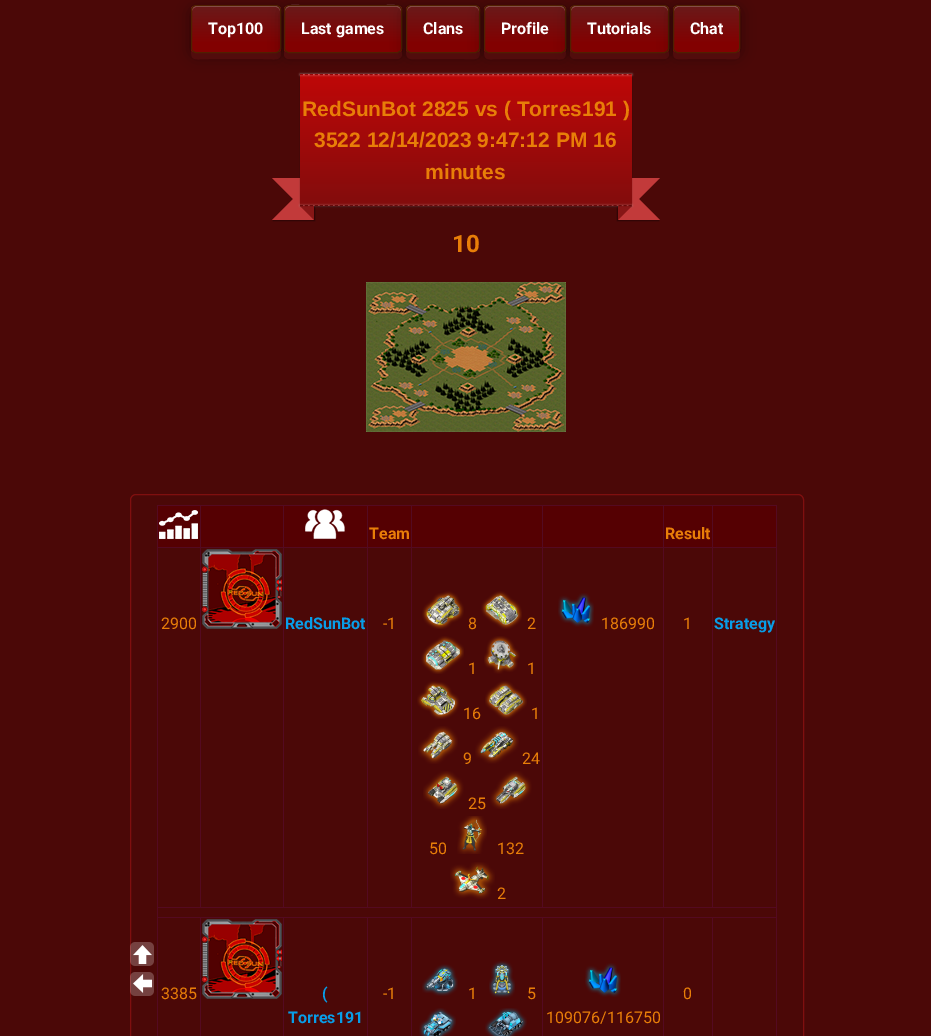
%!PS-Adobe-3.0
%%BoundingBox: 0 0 931 1036
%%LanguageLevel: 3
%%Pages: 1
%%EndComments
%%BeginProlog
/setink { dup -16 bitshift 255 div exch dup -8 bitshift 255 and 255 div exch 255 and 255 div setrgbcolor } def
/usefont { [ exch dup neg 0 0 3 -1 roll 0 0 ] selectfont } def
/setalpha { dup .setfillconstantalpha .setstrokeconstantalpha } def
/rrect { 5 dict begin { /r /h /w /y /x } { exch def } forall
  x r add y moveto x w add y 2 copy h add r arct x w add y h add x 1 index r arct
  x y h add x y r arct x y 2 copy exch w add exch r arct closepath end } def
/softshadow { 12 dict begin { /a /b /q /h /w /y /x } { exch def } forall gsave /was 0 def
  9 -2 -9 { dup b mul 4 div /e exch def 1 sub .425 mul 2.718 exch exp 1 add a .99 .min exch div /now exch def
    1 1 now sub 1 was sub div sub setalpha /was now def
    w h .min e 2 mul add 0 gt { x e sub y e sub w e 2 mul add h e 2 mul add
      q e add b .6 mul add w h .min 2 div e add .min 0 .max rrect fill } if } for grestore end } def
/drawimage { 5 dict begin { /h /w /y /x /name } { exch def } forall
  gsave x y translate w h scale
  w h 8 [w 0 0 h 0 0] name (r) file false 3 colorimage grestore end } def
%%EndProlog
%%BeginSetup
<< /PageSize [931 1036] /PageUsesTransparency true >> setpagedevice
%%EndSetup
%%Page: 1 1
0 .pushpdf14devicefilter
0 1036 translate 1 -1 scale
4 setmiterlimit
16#4B0807 setink
0 0 931 1036 rectfill
16#000000 setink
191 8 90 48 5 7.5 0.4 softshadow
16#520C0C setink
191 48 moveto 191 62 193 59 209 59 curveto 263 59 lineto 279 59 281 62 281 48 curveto 281 51 279 53 276 53 curveto 196 53 lineto 193 53 191 51 191 48 curveto closepath fill
gsave
191 5 90 48 5 rrect clip newpath
gsave 191 6 moveto 281 6 lineto 281 52 lineto 191 52 lineto closepath clip newpath
<< /ShadingType 2 /ColorSpace /DeviceRGB /Coords [236 6 236 52] /Extend [true true] /Function << /FunctionType 3 /Domain [0 1] /Functions [<< /FunctionType 2 /Domain [0 1] /C0 [0.416 0.102 0.102] /C1 [0.51 0.004 0.004] /N 1 >> << /FunctionType 2 /Domain [0 1] /C0 [0.51 0.004 0.004] /C1 [0.51 0.004 0.004] /N 1 >>] /Bounds [0.8] /Encode [0 1 0 1] >> >> shfill grestore
grestore
0.3 setalpha
16#FFFFFF setink
196 7 moveto 276 7 lineto 278 7 280 9 280 11 curveto 280 3 267 6 263 6 curveto 209 6 lineto 205 6 192 3 192 11 curveto 192 9 194 7 196 7 curveto closepath fill
1 setalpha
16#502000 setink
191.5 5.5 89 47 4.5 rrect stroke
/Roboto-Bold 16 usefont
16#FFFFFF setink
208 34 moveto (Top100) show
16#000000 setink
284 8 118 48 5 7.5 0.4 softshadow
16#520C0C setink
284 48 moveto 284 54 lineto 284 57 286 59 289 59 curveto 397 59 lineto 400 59 402 57 402 54 curveto 402 48 lineto 402 51 400 53 397 53 curveto 289 53 lineto 286 53 284 51 284 48 curveto closepath fill
gsave
284 5 118 48 5 rrect clip newpath
gsave 284 6 moveto 402 6 lineto 402 52 lineto 284 52 lineto closepath clip newpath
<< /ShadingType 2 /ColorSpace /DeviceRGB /Coords [343 6 343 52] /Extend [true true] /Function << /FunctionType 3 /Domain [0 1] /Functions [<< /FunctionType 2 /Domain [0 1] /C0 [0.416 0.102 0.102] /C1 [0.51 0.004 0.004] /N 1 >> << /FunctionType 2 /Domain [0 1] /C0 [0.51 0.004 0.004] /C1 [0.51 0.004 0.004] /N 1 >>] /Bounds [0.8] /Encode [0 1 0 1] >> >> shfill grestore
grestore
0.3 setalpha
16#FFFFFF setink
289 7 moveto 397 7 lineto 399 7 401 9 401 11 curveto 401 1 382 6 379 6 curveto 307 6 lineto 304 6 285 1 285 11 curveto 285 9 287 7 289 7 curveto closepath fill
1 setalpha
16#502000 setink
284.5 5.5 117 47 4.5 rrect stroke
16#FFFFFF setink
301 34 moveto (Last games) show
16#000000 setink
406 8 74 48 5 7.5 0.4 softshadow
16#520C0C setink
406 48 moveto 406 61 408 59 422 59 curveto 464 59 lineto 478 59 480 61 480 48 curveto 480 51 478 53 475 53 curveto 411 53 lineto 408 53 406 51 406 48 curveto closepath fill
gsave
406 5 74 48 5 rrect clip newpath
gsave 406 6 moveto 480 6 lineto 480 52 lineto 406 52 lineto closepath clip newpath
<< /ShadingType 2 /ColorSpace /DeviceRGB /Coords [443 6 443 52] /Extend [true true] /Function << /FunctionType 3 /Domain [0 1] /Functions [<< /FunctionType 2 /Domain [0 1] /C0 [0.416 0.102 0.102] /C1 [0.51 0.004 0.004] /N 1 >> << /FunctionType 2 /Domain [0 1] /C0 [0.51 0.004 0.004] /C1 [0.51 0.004 0.004] /N 1 >>] /Bounds [0.8] /Encode [0 1 0 1] >> >> shfill grestore
grestore
0.3 setalpha
16#FFFFFF setink
411 7 moveto 475 7 lineto 477 7 479 9 479 11 curveto 479 3 469 6 464 6 curveto 422 6 lineto 417 6 407 3 407 11 curveto 407 9 409 7 411 7 curveto closepath fill
1 setalpha
16#502000 setink
406.5 5.5 73 47 4.5 rrect stroke
16#FFFFFF setink
423 34 moveto (Clans) show
16#000000 setink
484 8 82 48 5 7.5 0.4 softshadow
16#520C0C setink
484 48 moveto 484 62 486 59 501 59 curveto 549 59 lineto 564 59 566 62 566 48 curveto 566 51 564 53 561 53 curveto 489 53 lineto 486 53 484 51 484 48 curveto closepath fill
gsave
484 5 82 48 5 rrect clip newpath
gsave 484 6 moveto 566 6 lineto 566 52 lineto 484 52 lineto closepath clip newpath
<< /ShadingType 2 /ColorSpace /DeviceRGB /Coords [525 6 525 52] /Extend [true true] /Function << /FunctionType 3 /Domain [0 1] /Functions [<< /FunctionType 2 /Domain [0 1] /C0 [0.416 0.102 0.102] /C1 [0.51 0.004 0.004] /N 1 >> << /FunctionType 2 /Domain [0 1] /C0 [0.51 0.004 0.004] /C1 [0.51 0.004 0.004] /N 1 >>] /Bounds [0.8] /Encode [0 1 0 1] >> >> shfill grestore
grestore
0.3 setalpha
16#FFFFFF setink
489 7 moveto 561 7 lineto 563 7 565 9 565 11 curveto 565 3 554 6 549 6 curveto 501 6 lineto 496 6 485 3 485 11 curveto 485 9 487 7 489 7 curveto closepath fill
1 setalpha
16#502000 setink
484.5 5.5 81 47 4.5 rrect stroke
16#FFFFFF setink
501 34 moveto (Profile) show
16#000000 setink
570 8 99 48 5 7.5 0.4 softshadow
16#520C0C setink
570 48 moveto 570 54 lineto 570 57 572 59 575 59 curveto 664 59 lineto 667 59 669 57 669 54 curveto 669 48 lineto 669 51 667 53 664 53 curveto 575 53 lineto 572 53 570 51 570 48 curveto closepath fill
gsave
570 5 99 48 5 rrect clip newpath
gsave 570 6 moveto 669 6 lineto 669 52 lineto 570 52 lineto closepath clip newpath
<< /ShadingType 2 /ColorSpace /DeviceRGB /Coords [620 6 620 52] /Extend [true true] /Function << /FunctionType 3 /Domain [0 1] /Functions [<< /FunctionType 2 /Domain [0 1] /C0 [0.416 0.102 0.102] /C1 [0.51 0.004 0.004] /N 1 >> << /FunctionType 2 /Domain [0 1] /C0 [0.51 0.004 0.004] /C1 [0.51 0.004 0.004] /N 1 >>] /Bounds [0.8] /Encode [0 1 0 1] >> >> shfill grestore
grestore
0.3 setalpha
16#FFFFFF setink
575 7 moveto 664 7 lineto 666 7 668 9 668 11 curveto 668 2 654 6 649 6 curveto 590 6 lineto 585 6 571 2 571 11 curveto 571 9 573 7 575 7 curveto closepath fill
1 setalpha
16#502000 setink
570.5 5.5 98 47 4.5 rrect stroke
16#FFFFFF setink
587 34 moveto (Tutorials) show
16#000000 setink
673 8 67 48 5 7.5 0.4 softshadow
16#520C0C setink
673 48 moveto 673 61 674 59 688 59 curveto 726 59 lineto 739 59 740 61 740 48 curveto 740 51 738 53 735 53 curveto 678 53 lineto 675 53 673 51 673 48 curveto closepath fill
gsave
673 5 67 48 5 rrect clip newpath
gsave 673 6 moveto 740 6 lineto 740 52 lineto 673 52 lineto closepath clip newpath
<< /ShadingType 2 /ColorSpace /DeviceRGB /Coords [707 6 707 52] /Extend [true true] /Function << /FunctionType 3 /Domain [0 1] /Functions [<< /FunctionType 2 /Domain [0 1] /C0 [0.416 0.102 0.102] /C1 [0.51 0.004 0.004] /N 1 >> << /FunctionType 2 /Domain [0 1] /C0 [0.51 0.004 0.004] /C1 [0.51 0.004 0.004] /N 1 >>] /Bounds [0.8] /Encode [0 1 0 1] >> >> shfill grestore
grestore
16#975F5F setink
678 7 moveto 735 7 lineto 737 7 739 9 739 11 curveto 739 4 731 6 726 6 curveto 688 6 lineto 682 6 674 4 674 11 curveto 674 9 676 7 678 7 curveto closepath fill
16#502000 setink
673.5 5.5 66 47 4.5 rrect stroke
16#FFFFFF setink
690 34 moveto (Chat) show
gsave
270 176 moveto 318 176 lineto 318 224 lineto 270 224 lineto closepath 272 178 moveto 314 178 lineto 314 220 lineto 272 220 lineto closepath eoclip newpath
16#000000 setink
273 179 42 42 0 0.5 0.4 softshadow
grestore
16#C23A3A setink
272 178 moveto 314 178 lineto 293 199 lineto closepath fill
293 178 21 42 rectfill
314 220 moveto 272 220 lineto 293 199 lineto closepath fill
gsave
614 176 moveto 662 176 lineto 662 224 lineto 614 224 lineto closepath 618 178 moveto 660 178 lineto 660 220 lineto 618 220 lineto closepath eoclip newpath
16#000000 setink
617 179 42 42 0 0.5 0.4 softshadow
grestore
618 178 moveto 660 178 lineto 639 199 lineto closepath 660 220 moveto 618 220 lineto 639 199 lineto closepath fill
618 178 21 42 rectfill
16#000000 setink
300 75 332 132 0 0.5 0.3 softshadow
gsave 300 74 moveto 632 74 lineto 632 206 lineto 300 206 lineto closepath clip newpath
<< /ShadingType 2 /ColorSpace /DeviceRGB /Coords [466 74 466 206] /Extend [true true] /Function << /FunctionType 2 /Domain [0 1] /C0 [0.749 0.027 0.027] /C1 [0.51 0.051 0.051] /N 1 >> >> shfill grestore
16#FFFFFF setink
300 74 332 1 0 1 0.5 softshadow
16#990606 setink
[3 1.98] 0 setdash
300 74.5 moveto 632 74.5 lineto stroke
/LiberationSans-Bold 21 usefont
16#E87E08 setink
[
    [(RedSunBot 2825 vs \( Torres191 \)) 302 116]
    [(3522 12/14/2023 9:47:12 PM 16) 314 147]
    [(minutes) 425 179]
] { aload pop moveto show } forall
16#FFFFFF setink
300 205 332 1 0 1 0.3 softshadow
16#871616 setink
300 206 moveto 314 206 lineto 314 220 lineto closepath fill
618 206 moveto 632 206 lineto 618 220 lineto closepath fill
16#680A0A setink
300 205.5 moveto 632 205.5 lineto stroke
/Roboto-Bold 24 usefont
16#E87E08 setink
452 252 moveto (10) show
(img1.raw) 366 282 200 150 drawimage
16#7F0F0F setink
[] 0 setdash
130.5 494.5 673 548 5.5 rrect stroke
(img2.raw) 130 942 24 24 drawimage
[
    [157 505 620 1 16#540A21]
    [776 505 1 531 16#540A21]
    [157 505 1 531 16#540A21]
    [158 506 42 41 16#550002]
] { aload pop setink rectfill } forall
(img3.raw) 159 510 39 29 drawimage
[
    [201 506 82 41 16#550002]
    [712 547 65 1 16#540A21]
    [712 907 65 1 16#540A21]
    [712 547 1 361 16#540A21]
    [663 547 50 1 16#540A21]
    [663 907 50 1 16#540A21]
    [663 547 1 361 16#540A21]
    [542 547 122 1 16#540A21]
    [542 907 122 1 16#540A21]
    [542 547 1 361 16#540A21]
    [411 547 132 1 16#540A21]
    [411 907 132 1 16#540A21]
    [411 547 1 361 16#540A21]
    [367 547 45 1 16#540A21]
    [367 907 45 1 16#540A21]
    [367 547 1 361 16#540A21]
    [283 547 85 1 16#540A21]
    [283 907 85 1 16#540A21]
    [283 547 1 361 16#540A21]
    [200 547 84 1 16#540A21]
    [200 907 84 1 16#540A21]
    [200 547 1 361 16#540A21]
    [157 547 44 1 16#540A21]
    [200 505 1 43 16#540A21]
    [284 506 83 41 16#550002]
    [283 505 1 43 16#540A21]
] { aload pop setink rectfill } forall
(img4.raw) 305 509 40 30 drawimage
16#550002 setink
368 506 43 41 rectfill
16#540A21 setink
367 505 1 43 rectfill
/Roboto-Bold 16 usefont
16#E87E08 setink
369 539 moveto (Team) show
[
    [412 506 130 41 16#550002]
    [411 505 1 43 16#540A21]
    [543 506 120 41 16#550002]
    [542 505 1 43 16#540A21]
    [664 506 48 41 16#550002]
    [663 505 1 43 16#540A21]
] { aload pop setink rectfill } forall
16#E87E08 setink
665 539 moveto (Result) show
[
    [713 506 63 41 16#550002]
    [712 505 1 43 16#540A21]
    [157 907 44 1 16#540A21]
] { aload pop setink rectfill } forall
/Roboto-Regular 16 usefont
16#E87E08 setink
161 629 moveto (2900) show
(img5.raw) 202 549 80 80 drawimage
/Roboto-Bold 16 usefont
16#089EE8 setink
285 629 moveto (RedSunBot) show
/Roboto-Regular 16 usefont
16#E87E08 setink
383 629 moveto (-1) show
(img6.raw) 422 591 42 38 drawimage
468 629 moveto (8) show
(img7.raw) 481 591 41 38 drawimage
527 629 moveto (2) show
(img8.raw) 421 636 43 38 drawimage
468 674 moveto (1) show
(img9.raw) 484 636 36 38 drawimage
527 674 moveto (1) show
(img10.raw) 417 681 43 38 drawimage
463 719 moveto (16) show
(img11.raw) 485 681 42 38 drawimage
531 719 moveto (1) show
(img12.raw) 418 726 40 38 drawimage
463 764 moveto (9) show
(img13.raw) 475 726 44 38 drawimage
522 764 moveto (24) show
(img14.raw) 423 771 41 38 drawimage
468 809 moveto (25) show
(img15.raw) 490 771 42 38 drawimage
429 854 moveto (50) show
(img16.raw) 457 816 30 38 drawimage
497 854 moveto (132) show
(img17.raw) 450 862 45 37 drawimage
497 899 moveto (2) show
(img18.raw) 558 593 36 34 drawimage
601 629 moveto (186990) show
683 629 moveto (1) show
/Roboto-Bold 16 usefont
16#089EE8 setink
714 629 moveto (Strategy) show
16#540A21 setink
157 917 620 1 rectfill
/Roboto-Regular 16 usefont
16#E87E08 setink
161 999 moveto (3385) show
16#540A21 setink
200 917 1 119 rectfill
(img5.raw) 202 919 80 80 drawimage
283 917 1 119 rectfill
/Roboto-Bold 16 usefont
16#089EE8 setink
322 999 moveto (\() show
288 1023 moveto (Torres191) show
16#540A21 setink
367 917 1 119 rectfill
/Roboto-Regular 16 usefont
16#E87E08 setink
383 999 moveto (-1) show
16#540A21 setink
411 917 1 119 rectfill
(img19.raw) 422 964 36 32 drawimage
16#E87E08 setink
468 999 moveto (1) show
(img20.raw) 489 961 26 37 drawimage
527 999 moveto (5) show
(img21.raw) 419 1008 37 28 drawimage
(img22.raw) 485 1008 42 28 drawimage
16#540A21 setink
663 917 1 119 rectfill
16#E87E08 setink
683 999 moveto (0) show
16#540A21 setink
712 917 1 119 rectfill
542 917 1 119 rectfill
(img18.raw) 585 963 36 34 drawimage
16#E87E08 setink
546 1023 moveto (109076/116750) show
(img23.raw) 130 972 24 24 drawimage
.poppdf14devicefilter showpage
%%EOF
